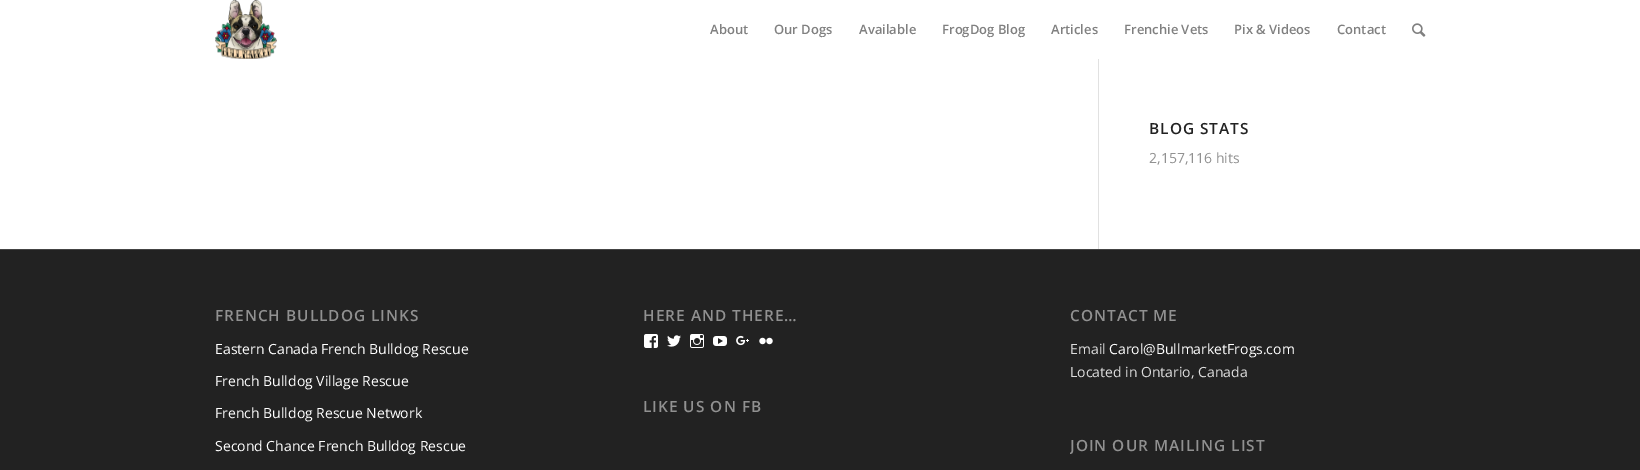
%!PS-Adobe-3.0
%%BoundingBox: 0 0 1640 470
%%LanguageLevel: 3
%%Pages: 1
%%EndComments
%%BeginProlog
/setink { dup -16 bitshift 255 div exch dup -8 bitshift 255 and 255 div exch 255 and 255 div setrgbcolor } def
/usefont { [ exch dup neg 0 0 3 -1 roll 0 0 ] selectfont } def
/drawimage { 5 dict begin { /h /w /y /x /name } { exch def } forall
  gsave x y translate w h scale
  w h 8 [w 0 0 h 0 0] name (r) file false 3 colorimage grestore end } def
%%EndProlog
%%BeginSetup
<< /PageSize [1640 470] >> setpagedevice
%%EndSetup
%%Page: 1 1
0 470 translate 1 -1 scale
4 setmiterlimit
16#FFFFFF setink
0 0 1640 470 rectfill
(img1.raw) 215 0 62 59 drawimage
/OpenSans-SemiBold 13 usefont
16#808080 setink
[
    [(About) 710 34]
    [(Our Dogs) 774 34]
    [(Available) 859 34]
    [(FrogDog Blog) 942 34]
    [(Articles) 1051 34]
    [(Frenchie Vets) 1124 34]
    [(Pix & Videos) 1234 34]
    [(Contact) 1337 34]
] { aload pop moveto show } forall
(img2.raw) 1412 23 14 14 drawimage
16#E1E1E1 setink
1098 59 1 190 rectfill
/OpenSans-SemiBold 15.4 usefont
16#222222 setink
1149 134 moveto 1 0 (BLOG STATS) ashow
/OpenSans-Regular 14 usefont
16#919191 setink
1149 163 moveto (2,157,116 hits) show
16#222222 setink
0 250 1640 220 rectfill
16#444444 setink
0 249 1640 1 rectfill
/OpenSans-SemiBold 15.4 usefont
16#919191 setink
215 321 moveto 1 0 (FRENCH BULLDOG LINKS) ashow
/OpenSans-Regular 14 usefont
16#FFFFFF setink
[
    [(Eastern Canada French Bulldog Rescue) 215 354]
    [(French Bulldog Village Rescue) 215 386]
    [(French Bulldog Rescue Network) 215 418]
    [(Second Chance French Bulldog Rescue) 215 451]
] { aload pop moveto show } forall
/OpenSans-SemiBold 15.4 usefont
16#919191 setink
643 321 moveto 1 0 (HERE AND THERE…) ashow
(img3.raw) 644 334 14 14 drawimage
(img4.raw) 667 335 14 12 drawimage
(img5.raw) 690 334 14 14 drawimage
(img6.raw) 713 336 14 10 drawimage
(img7.raw) 736 335 13 11 drawimage
(img8.raw) 759 337 14 8 drawimage
643 412 moveto 1 0 (LIKE US ON FB) ashow
1070 321 moveto 1 0 (CONTACT ME) ashow
/OpenSans-Regular 14 usefont
16#DDDDDD setink
1070 354 moveto (Email) show
16#FFFFFF setink
1109 354 moveto (Carol@BullmarketFrogs.com) show
16#DDDDDD setink
1070 377 moveto (Located in Ontario, Canada) show
gsave
1070 425 355 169 rectclip
/OpenSans-SemiBold 15.4 usefont
16#919191 setink
1070 451 moveto 1 0 (JOIN OUR MAILING LIST) ashow
grestore
showpage
%%EOF
